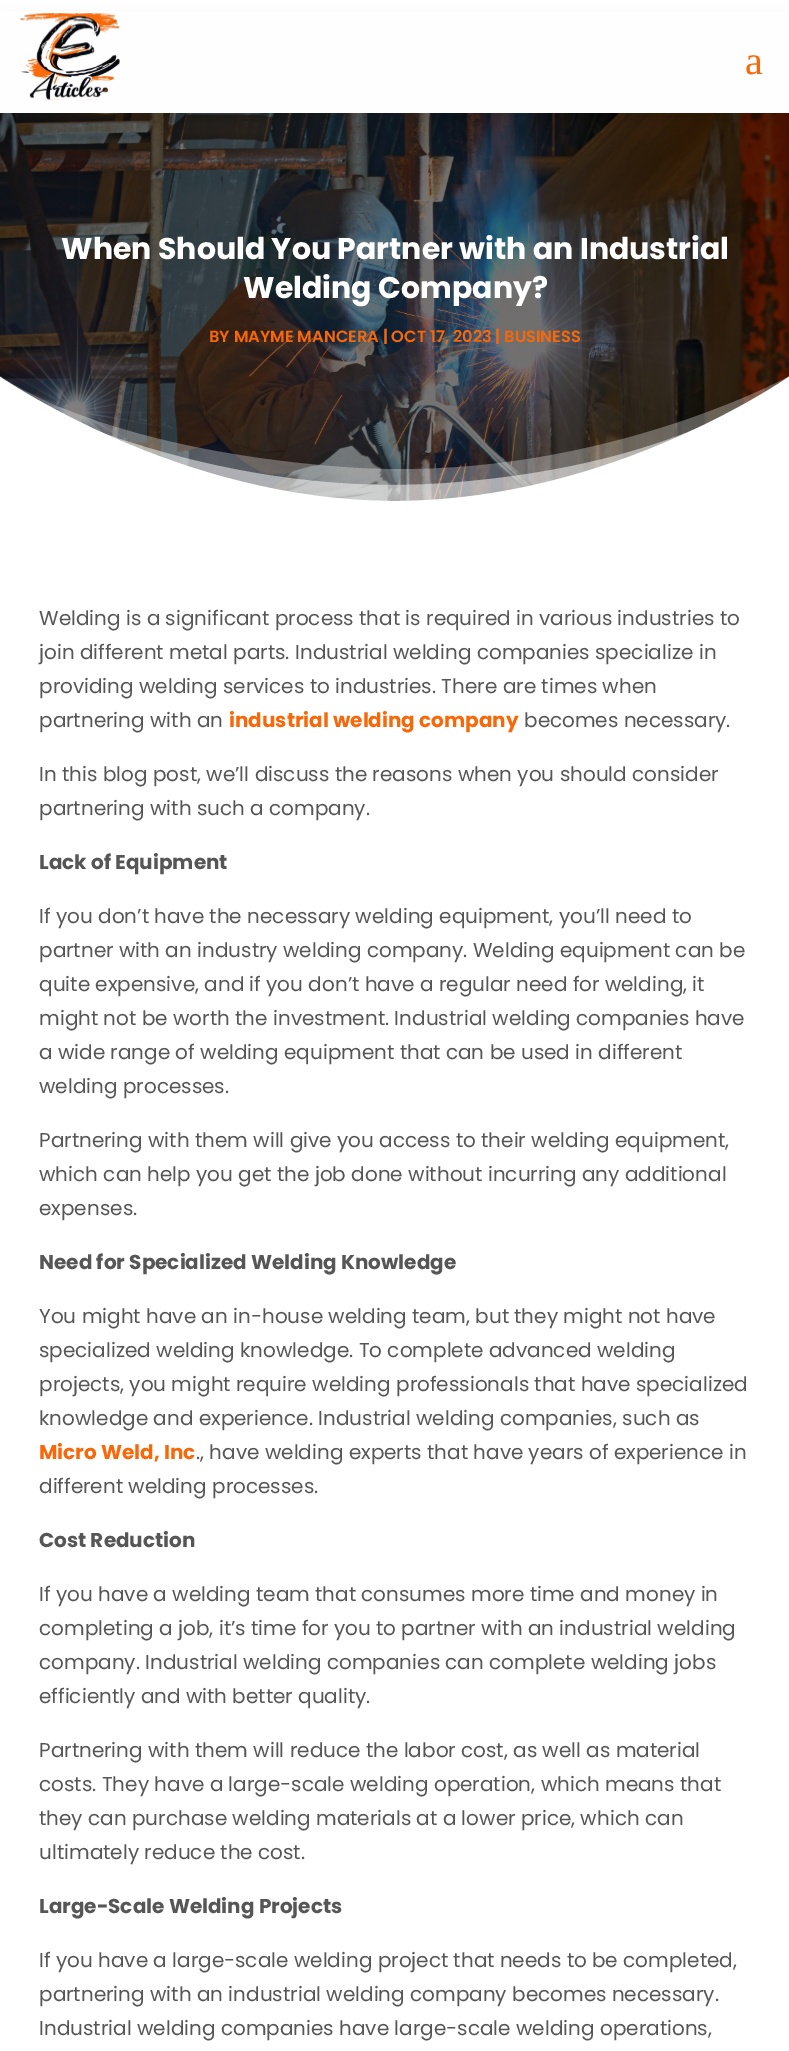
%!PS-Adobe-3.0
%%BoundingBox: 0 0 789 2051
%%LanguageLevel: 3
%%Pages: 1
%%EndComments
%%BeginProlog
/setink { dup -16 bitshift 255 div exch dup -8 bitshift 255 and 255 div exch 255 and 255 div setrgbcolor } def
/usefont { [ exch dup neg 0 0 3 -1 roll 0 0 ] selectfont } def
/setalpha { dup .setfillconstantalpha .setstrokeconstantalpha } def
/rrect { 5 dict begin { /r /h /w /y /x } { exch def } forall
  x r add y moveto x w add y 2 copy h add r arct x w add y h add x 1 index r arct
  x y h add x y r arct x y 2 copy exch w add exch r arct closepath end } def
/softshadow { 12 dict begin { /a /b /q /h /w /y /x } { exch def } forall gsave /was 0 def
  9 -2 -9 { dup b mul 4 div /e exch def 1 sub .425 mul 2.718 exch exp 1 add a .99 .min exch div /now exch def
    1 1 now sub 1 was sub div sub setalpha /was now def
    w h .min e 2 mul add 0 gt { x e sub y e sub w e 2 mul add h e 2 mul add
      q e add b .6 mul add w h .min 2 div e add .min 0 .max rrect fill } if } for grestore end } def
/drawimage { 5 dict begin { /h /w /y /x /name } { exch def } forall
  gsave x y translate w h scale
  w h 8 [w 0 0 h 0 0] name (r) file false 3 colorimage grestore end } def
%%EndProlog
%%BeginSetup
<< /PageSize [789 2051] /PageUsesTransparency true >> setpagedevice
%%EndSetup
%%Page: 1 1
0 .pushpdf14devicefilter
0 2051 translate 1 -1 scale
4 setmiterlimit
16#FFFFFF setink
0 0 789 2051 rectfill
(img2.raw) 0 113 789 388 drawimage
16#000000 setink
8 23 775 97 0 11 0.1 softshadow
16#FEFEFE setink
0 11 789 102 rectfill
(img1.raw) 20 13 100 87 drawimage
/LiberationSerif-Regular 40 usefont
16#F86708 setink
745 74 moveto (a) show
/Poppins-Bold 30 usefont
16#FFFFFF setink
61 259 moveto (When Should You Partner with an Industrial) show
243 298 moveto (Welding Company?) show
/Poppins-SemiBold 16.25 usefont
16#F86708 setink
209 342 moveto (BY MAYME MANCERA | OCT 17, 2023 | BUSINESS) show
0.3 setalpha
16#FFFFFF setink
342 467 moveto 589 486 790 376 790 376 curveto 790 501 lineto 0 501 lineto 0 376 lineto 0 376 95 448 342 467 curveto closepath fill
0.5 setalpha
447 483 moveto 202 501 0 389 0 389 curveto 0 501 lineto 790 501 lineto 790 376 lineto 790 376 692 465 447 483 curveto closepath fill
gsave
0 376 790 125 rectclip
1 setalpha
395 501 moveto 177 501 0 376 0 377 curveto 0 502 lineto 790 502 lineto 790 376 lineto 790 376 613 501 395 501 curveto closepath fill
grestore
/Poppins-Regular 20 usefont
1 setalpha
16#565656 setink
[
    [(Welding is a significant process that is required in various industries to) 39 625]
    [(join different metal parts. Industrial welding companies specialize in) 39 659]
    [(providing welding services to industries. There are times when) 39 693]
    [(partnering with an) 39 727]
] { aload pop moveto show } forall
/Poppins-Bold 20 usefont
16#F86708 setink
229 727 moveto (industrial welding company) show
/Poppins-Regular 20 usefont
16#565656 setink
[
    [(becomes necessary.) 524 727]
    [(In this blog post, we’ll discuss the reasons when you should consider) 39 781]
    [(partnering with such a company.) 39 815]
] { aload pop moveto show } forall
/Poppins-Bold 20 usefont
39 869 moveto (Lack of Equipment) show
/Poppins-Regular 20 usefont
[
    [(If you don’t have the necessary welding equipment, you’ll need to) 39 923]
    [(partner with an industry welding company. Welding equipment can be) 39 957]
    [(quite expensive, and if you don’t have a regular need for welding, it) 39 991]
    [(might not be worth the investment. Industrial welding companies have) 39 1025]
    [(a wide range of welding equipment that can be used in different) 39 1059]
    [(welding processes.) 39 1093]
    [(Partnering with them will give you access to their welding equipment,) 39 1147]
    [(which can help you get the job done without incurring any additional) 39 1181]
    [(expenses.) 39 1215]
] { aload pop moveto show } forall
/Poppins-Bold 20 usefont
39 1269 moveto (Need for Specialized Welding Knowledge) show
/Poppins-Regular 20 usefont
[
    [(You might have an in-house welding team, but they might not have) 39 1323]
    [(specialized welding knowledge. To complete advanced welding) 39 1357]
    [(projects, you might require welding professionals that have specialized) 39 1391]
    [(knowledge and experience. Industrial welding companies, such as) 39 1425]
] { aload pop moveto show } forall
/Poppins-Bold 20 usefont
16#F86708 setink
39 1459 moveto (Micro Weld, Inc) show
/Poppins-Regular 20 usefont
16#565656 setink
196 1459 moveto (., have welding experts that have years of experience in) show
39 1493 moveto (different welding processes.) show
/Poppins-Bold 20 usefont
39 1547 moveto (Cost Reduction) show
/Poppins-Regular 20 usefont
[
    [(If you have a welding team that consumes more time and money in) 39 1601]
    [(completing a job, it’s time for you to partner with an industrial welding) 39 1635]
    [(company. Industrial welding companies can complete welding jobs) 39 1669]
    [(efficiently and with better quality.) 39 1703]
    [(Partnering with them will reduce the labor cost, as well as material) 39 1757]
    [(costs. They have a large-scale welding operation, which means that) 39 1791]
    [(they can purchase welding materials at a lower price, which can) 39 1825]
    [(ultimately reduce the cost.) 39 1859]
] { aload pop moveto show } forall
/Poppins-Bold 20 usefont
39 1913 moveto (Large-Scale Welding Projects) show
/Poppins-Regular 20 usefont
[
    [(If you have a large-scale welding project that needs to be completed,) 39 1967]
    [(partnering with an industrial welding company becomes necessary.) 39 2001]
    [(Industrial welding companies have large-scale welding operations,) 39 2035]
] { aload pop moveto show } forall
.poppdf14devicefilter showpage
%%EOF
